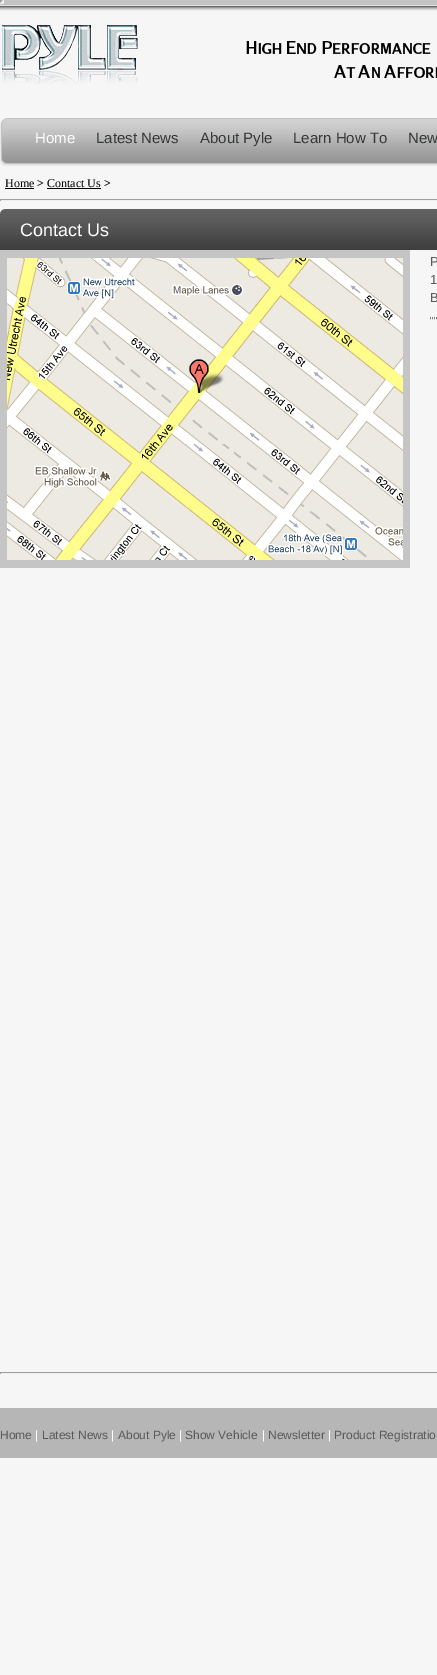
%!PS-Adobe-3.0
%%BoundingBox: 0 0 437 1675
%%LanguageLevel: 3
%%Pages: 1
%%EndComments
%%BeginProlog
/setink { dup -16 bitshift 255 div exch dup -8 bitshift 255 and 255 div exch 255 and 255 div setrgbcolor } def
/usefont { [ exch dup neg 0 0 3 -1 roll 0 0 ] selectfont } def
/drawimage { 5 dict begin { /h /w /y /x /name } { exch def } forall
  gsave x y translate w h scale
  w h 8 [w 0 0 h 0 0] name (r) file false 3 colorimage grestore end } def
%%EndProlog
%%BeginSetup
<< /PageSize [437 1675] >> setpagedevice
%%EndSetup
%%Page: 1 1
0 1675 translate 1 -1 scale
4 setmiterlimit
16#F6F6F6 setink
0 0 437 1675 rectfill
(img1.raw) 0 0 437 11 drawimage
16#9F9F9F setink
-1 -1 moveto 4 -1 lineto 2 1 lineto 1 1 lineto closepath fill
16#EEEEEE setink
4 -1 moveto 4 4 lineto 2 2 lineto 2 1 lineto closepath fill
4 4 moveto -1 4 lineto 1 2 lineto 2 2 lineto closepath fill
16#9F9F9F setink
-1 4 moveto -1 -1 lineto 1 1 lineto 1 2 lineto closepath fill
(img2.raw) 2 25 136 59 drawimage
(img3.raw) 246 41 191 37 drawimage
(img4.raw) 7 118 430 48 drawimage
(img5.raw) 0 118 7 48 drawimage
/LiberationSans-Regular 15 usefont
16#FFFFFF setink
35 143 moveto (Home) show
16#363737 setink
[
    [(Latest News) 96 143]
    [(About Pyle) 200 143]
    [(Learn How To) 293 143]
    [(New) 408 143]
] { aload pop moveto show } forall
/LiberationSerif-Regular 12 usefont
16#000000 setink
5 187 moveto (Home) show
5 188 29 1 rectfill
/LiberationSerif-Bold 12 usefont
37 187 moveto (>) show
/LiberationSerif-Regular 12 usefont
47 187 moveto (Contact Us) show
47 188 54 1 rectfill
/LiberationSerif-Bold 12 usefont
104 187 moveto (>) show
[
    [0 199 437 1 16#9F9F9F]
    [0 200 437 1 16#EEEEEE]
    [0 199 1 2 16#9F9F9F]
] { aload pop setink rectfill } forall
(img6.raw) 0 209 10 41 drawimage
(img7.raw) 10 209 427 41 drawimage
/LiberationSans-Regular 18 usefont
16#FFFFFF setink
20 236 moveto (Contact Us) show
(img8.raw) 0 250 410 318 drawimage
/LiberationSans-Regular 13 usefont
16#595959 setink
[
    [(P) 430 266]
    [(1) 430 284]
    [(B) 430 302]
] { aload pop moveto show } forall
16#808080 setink
[1 1] 0 setdash
430 317.5 moveto 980 317.5 lineto 430 318.5 moveto 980 318.5 lineto stroke
[
    [0 1372 437 1 16#9F9F9F]
    [0 1373 437 1 16#EEEEEE]
    [0 1372 1 2 16#9F9F9F]
    [0 1408 437 50 16#B7B6B6]
] { aload pop setink rectfill } forall
/LiberationSans-Regular 12 usefont
16#595959 setink
0 1439 moveto (Home) show
16#FFFFFF setink
35 1439 moveto (|) show
16#595959 setink
42 1439 moveto (Latest News) show
16#FFFFFF setink
111 1439 moveto (|) show
16#595959 setink
118 1439 moveto (About Pyle) show
16#FFFFFF setink
179 1439 moveto (|) show
16#595959 setink
185 1439 moveto (Show Vehicle) show
16#FFFFFF setink
262 1439 moveto (|) show
16#595959 setink
268 1439 moveto (Newsletter) show
16#FFFFFF setink
328 1439 moveto (|) show
16#595959 setink
334 1439 moveto (Product Registratio) show
showpage
%%EOF
